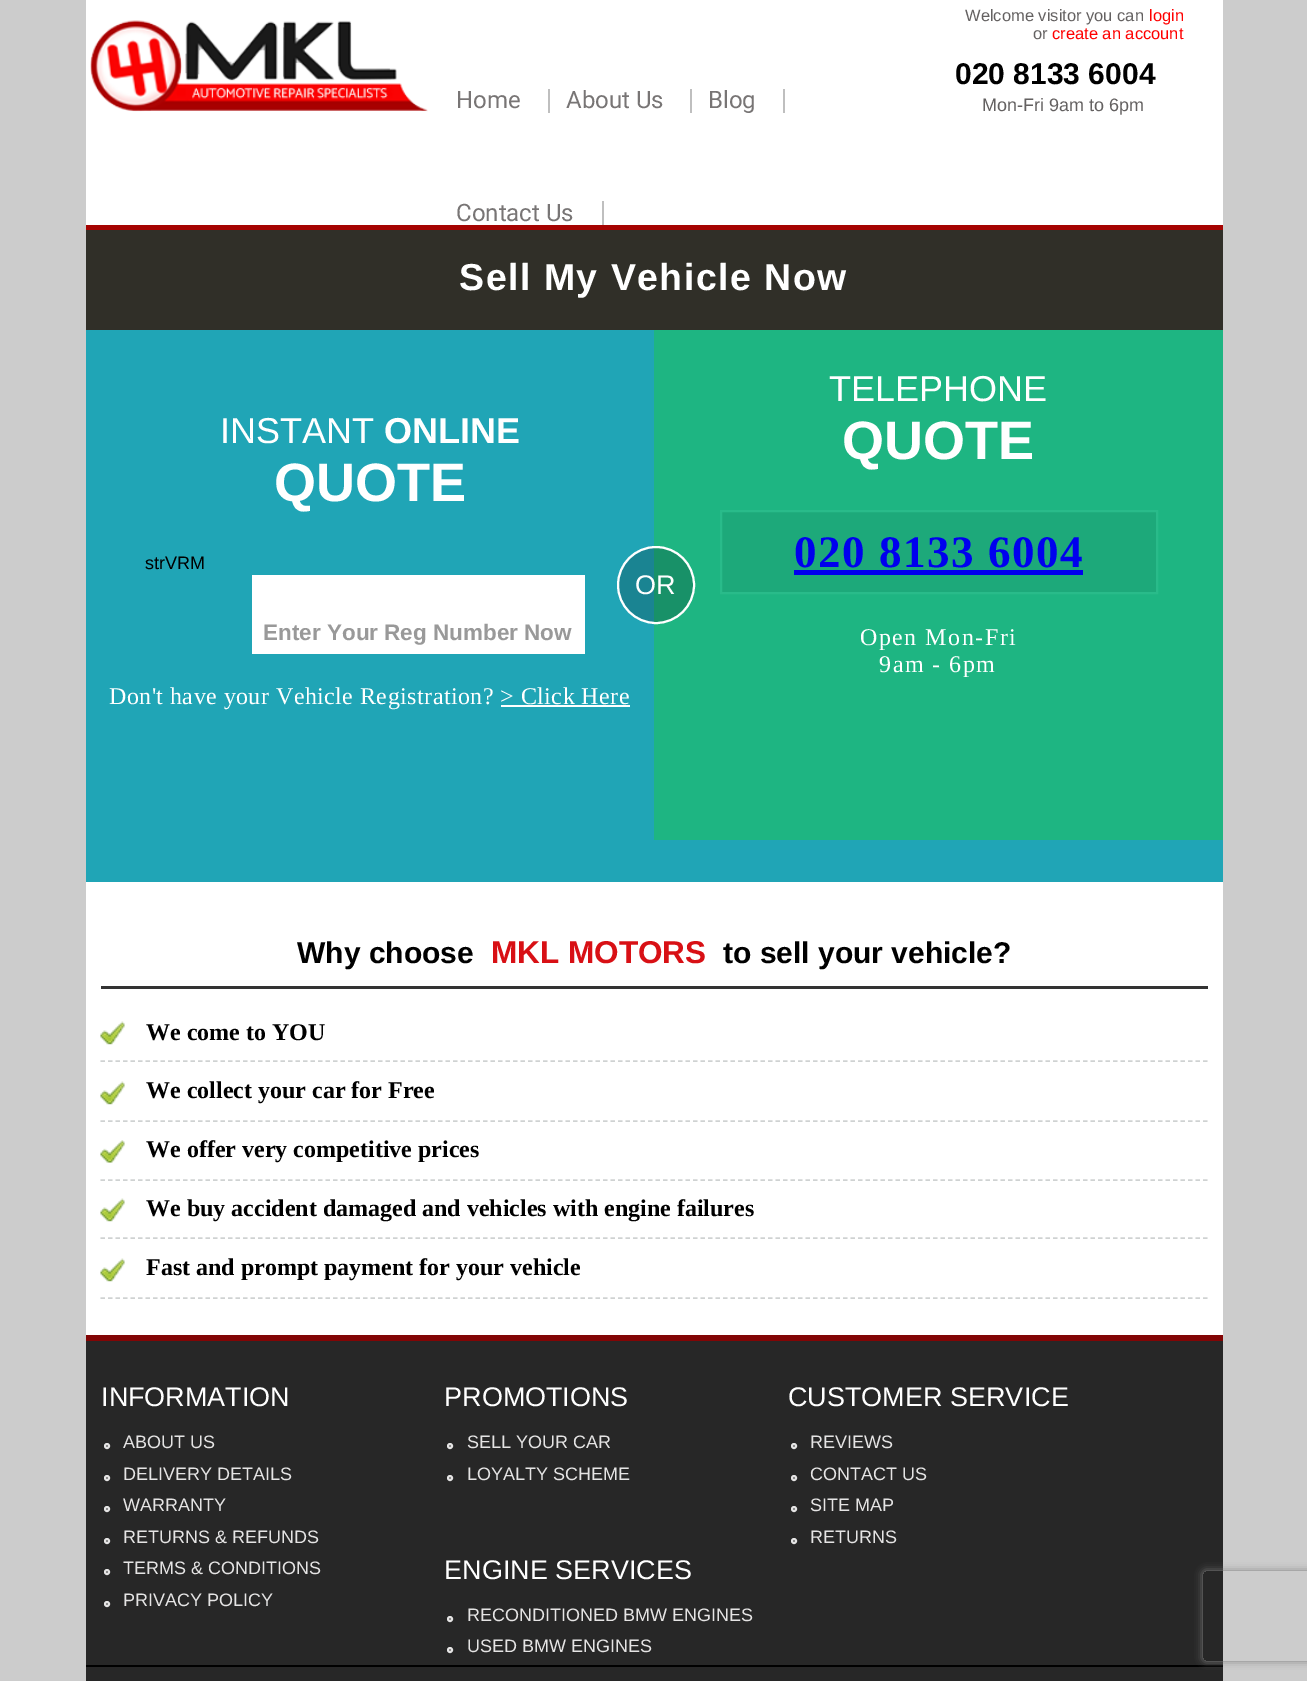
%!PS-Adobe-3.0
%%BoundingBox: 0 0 1307 1681
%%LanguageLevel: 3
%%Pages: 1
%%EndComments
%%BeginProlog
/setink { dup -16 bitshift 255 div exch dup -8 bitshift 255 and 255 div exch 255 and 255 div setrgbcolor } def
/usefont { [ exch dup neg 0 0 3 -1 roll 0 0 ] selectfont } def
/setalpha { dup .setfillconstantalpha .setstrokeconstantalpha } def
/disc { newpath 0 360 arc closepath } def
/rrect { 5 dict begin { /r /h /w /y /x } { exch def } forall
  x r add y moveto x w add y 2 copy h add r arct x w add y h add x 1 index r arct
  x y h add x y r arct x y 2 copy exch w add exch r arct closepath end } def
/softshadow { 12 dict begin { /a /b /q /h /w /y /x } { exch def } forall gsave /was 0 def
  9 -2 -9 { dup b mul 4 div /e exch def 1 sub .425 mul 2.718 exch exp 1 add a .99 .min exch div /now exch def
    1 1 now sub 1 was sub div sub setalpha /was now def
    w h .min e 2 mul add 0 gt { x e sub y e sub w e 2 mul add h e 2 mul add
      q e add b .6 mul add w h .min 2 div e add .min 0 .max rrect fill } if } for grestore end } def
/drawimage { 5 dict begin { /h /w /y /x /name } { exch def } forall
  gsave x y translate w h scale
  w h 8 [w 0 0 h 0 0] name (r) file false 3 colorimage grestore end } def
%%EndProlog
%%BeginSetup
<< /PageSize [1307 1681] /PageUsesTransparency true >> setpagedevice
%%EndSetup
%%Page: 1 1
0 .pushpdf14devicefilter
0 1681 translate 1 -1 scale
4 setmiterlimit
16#CCCCCC setink
0 0 1307 1681 rectfill
16#FFFFFF setink
86 0 1137 1335 rectfill
(img1.raw) 90 20 338 92 drawimage
/LiberationSans-Regular 16.5 usefont
16#646161 setink
965 21 moveto (Welcome visitor you can) show
16#FF0000 setink
1149 21 moveto (login) show
16#646161 setink
1033 39 moveto (or) show
16#FF0000 setink
1052 39 moveto (create an account) show
/LiberationSans-Bold 30 usefont
16#000000 setink
955 84 moveto (020 8133 6004) show
/LiberationSans-Regular 18 usefont
16#646161 setink
982 111 moveto (Mon-Fri 9am to 6pm) show
16#BFBFBF setink
548 89 2 24 rectfill
/Roboto-Regular 24 usefont
16#787575 setink
456 108 moveto (Home) show
16#BFBFBF setink
690 89 2 24 rectfill
16#787575 setink
566 108 moveto (About Us) show
16#BFBFBF setink
783 89 2 24 rectfill
16#787575 setink
708 108 moveto (Blog) show
16#BFBFBF setink
602 201 2 24 rectfill
16#787575 setink
456 221 moveto (Contact Us) show
16#302F28 setink
86 230 1137 100 rectfill
16#A50301 setink
86 225 1137 5 rectfill
/LiberationSans-Bold 37.5 usefont
16#FFFFFF setink
459 290 moveto 1.5 0 (Sell My Vehicle Now) ashow
16#20A5B6 setink
86 330 1137 552 rectfill
/LiberationSans-Regular 36 usefont
16#FFFFFF setink
220 443 moveto (INSTANT) show
/LiberationSans-Bold 36 usefont
384 443 moveto (ONLINE) show
/LiberationSans-Bold 54 usefont
274 501 moveto (QUOTE) show
/LiberationSans-Regular 18 usefont
16#000000 setink
145 569 moveto (strVRM) show
16#FFFFFF setink
252 575 333 79 rectfill
/LiberationSans-Bold 22.5 usefont
16#999999 setink
263 640 moveto (Enter Your Reg Number Now) show
/LiberationSerif-Regular 24 usefont
16#FFFFFF setink
109 704 moveto 0.45 0 (Don't have your Vehicle Registration? > Click Here) ashow
501 705 129 2 rectfill
16#1EB582 setink
654 330 569 510 rectfill
0.2 setalpha
16#000000 setink
656 585 38 disc fill
1 setalpha
16#FFFFFF setink
2 setlinewidth
656 585 38 disc stroke
/LiberationSans-Regular 27 usefont
635 594 moveto (OR) show
/LiberationSans-Regular 36 usefont
829 401 moveto (TELEPHONE) show
/LiberationSans-Bold 54 usefont
842 459 moveto (QUOTE) show
16#1DA97A setink
721 511 moveto 1157 511 lineto 1157 593 lineto 721 593 lineto closepath gsave fill grestore
16#29BB8A setink
stroke
/LiberationSerif-Bold 45 usefont
16#0000EE setink
794 567 moveto 1.5 0 (020 8133 6004) ashow
794 570 289 5 rectfill
/LiberationSerif-Regular 24 usefont
16#FFFFFF setink
860 645 moveto 1.5 0 (Open Mon-Fri) ashow
879 672 moveto 1.5 0 (9am - 6pm) ashow
16#333333 setink
101 986 1107 3 rectfill
/LiberationSans-Bold 30 usefont
16#000000 setink
297 963 moveto (Why choose) show
/LiberationSans-Bold 31.5 usefont
16#D81015 setink
491 963 moveto (MKL MOTORS) show
/LiberationSans-Bold 30 usefont
16#000000 setink
723 963 moveto (to sell your vehicle?) show
16#CFD2D2 setink
1.5 setlinewidth
[4.5 3] 0 setdash
100.5 1061 moveto 1207.5 1061 lineto stroke
(img2.raw) 100 1021 25 24 drawimage
/LiberationSerif-Bold 24 usefont
16#000000 setink
146 1040 moveto (We come to YOU) show
16#CFD2D2 setink
100.5 1121 moveto 1207.5 1121 lineto stroke
(img2.raw) 100 1081 25 24 drawimage
16#000000 setink
146 1098 moveto (We collect your car for Free) show
16#CFD2D2 setink
100.5 1180 moveto 1207.5 1180 lineto stroke
(img3.raw) 100 1140 25 23 drawimage
16#000000 setink
146 1157 moveto (We offer very competitive prices) show
16#CFD2D2 setink
100.5 1238 moveto 1207.5 1238 lineto stroke
(img2.raw) 100 1198 25 24 drawimage
16#000000 setink
146 1216 moveto (We buy accident damaged and vehicles with engine failures) show
16#CFD2D2 setink
100.5 1298 moveto 1207.5 1298 lineto stroke
(img2.raw) 100 1258 25 24 drawimage
16#000000 setink
146 1275 moveto (Fast and prompt payment for your vehicle) show
[
    [86 1341 1137 340 16#272727]
    [86 1335 1137 6 16#820505]
    [86 1665 1137 2 16#000000]
] { aload pop setink rectfill } forall
/LiberationSans-Regular 27 usefont
16#FFFFFF setink
101 1406 moveto (INFORMATION) show
16#E5E4E4 setink
2 setlinewidth
[] 0 setdash
107 1446 2 disc stroke
/LiberationSans-Regular 18 usefont
123 1448 moveto (ABOUT US) show
107 1478 2 disc stroke
123 1480 moveto (DELIVERY DETAILS) show
107 1509 2 disc stroke
123 1511 moveto (WARRANTY) show
107 1541 2 disc stroke
123 1543 moveto (RETURNS & REFUNDS) show
107 1572 2 disc stroke
123 1574 moveto (TERMS & CONDITIONS) show
107 1604 2 disc stroke
123 1606 moveto (PRIVACY POLICY) show
/LiberationSans-Regular 27 usefont
16#FFFFFF setink
444 1406 moveto (PROMOTIONS) show
16#E5E4E4 setink
450 1446 2 disc stroke
/LiberationSans-Regular 18 usefont
467 1448 moveto (SELL YOUR CAR) show
450 1478 2 disc stroke
467 1480 moveto (LOYALTY SCHEME) show
/LiberationSans-Regular 27 usefont
16#FFFFFF setink
788 1406 moveto (CUSTOMER SERVICE) show
16#E5E4E4 setink
794 1446 2 disc stroke
/LiberationSans-Regular 18 usefont
810 1448 moveto (REVIEWS) show
794 1478 2 disc stroke
810 1480 moveto (CONTACT US) show
794 1509 2 disc stroke
810 1511 moveto (SITE MAP) show
794 1541 2 disc stroke
810 1543 moveto (RETURNS) show
/LiberationSans-Regular 27 usefont
16#FFFFFF setink
444 1579 moveto (ENGINE SERVICES) show
16#E5E4E4 setink
450 1619 2 disc stroke
/LiberationSans-Regular 18 usefont
467 1621 moveto (RECONDITIONED BMW ENGINES) show
450 1650 2 disc stroke
467 1652 moveto (USED BMW ENGINES) show
gsave
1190 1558 moveto 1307 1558 lineto 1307 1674 lineto 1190 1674 lineto closepath 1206 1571 moveto 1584 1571 lineto 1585.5 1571 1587 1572.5 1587 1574 curveto 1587 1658 lineto 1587 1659.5 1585.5 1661 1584 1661 curveto 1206 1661 lineto 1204.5 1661 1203 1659.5 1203 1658 curveto 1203 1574 lineto 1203 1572.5 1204.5 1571 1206 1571 curveto closepath eoclip newpath
16#808080 setink
1203 1571 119 90 3 4 1 softshadow
grestore
.poppdf14devicefilter showpage
%%EOF
